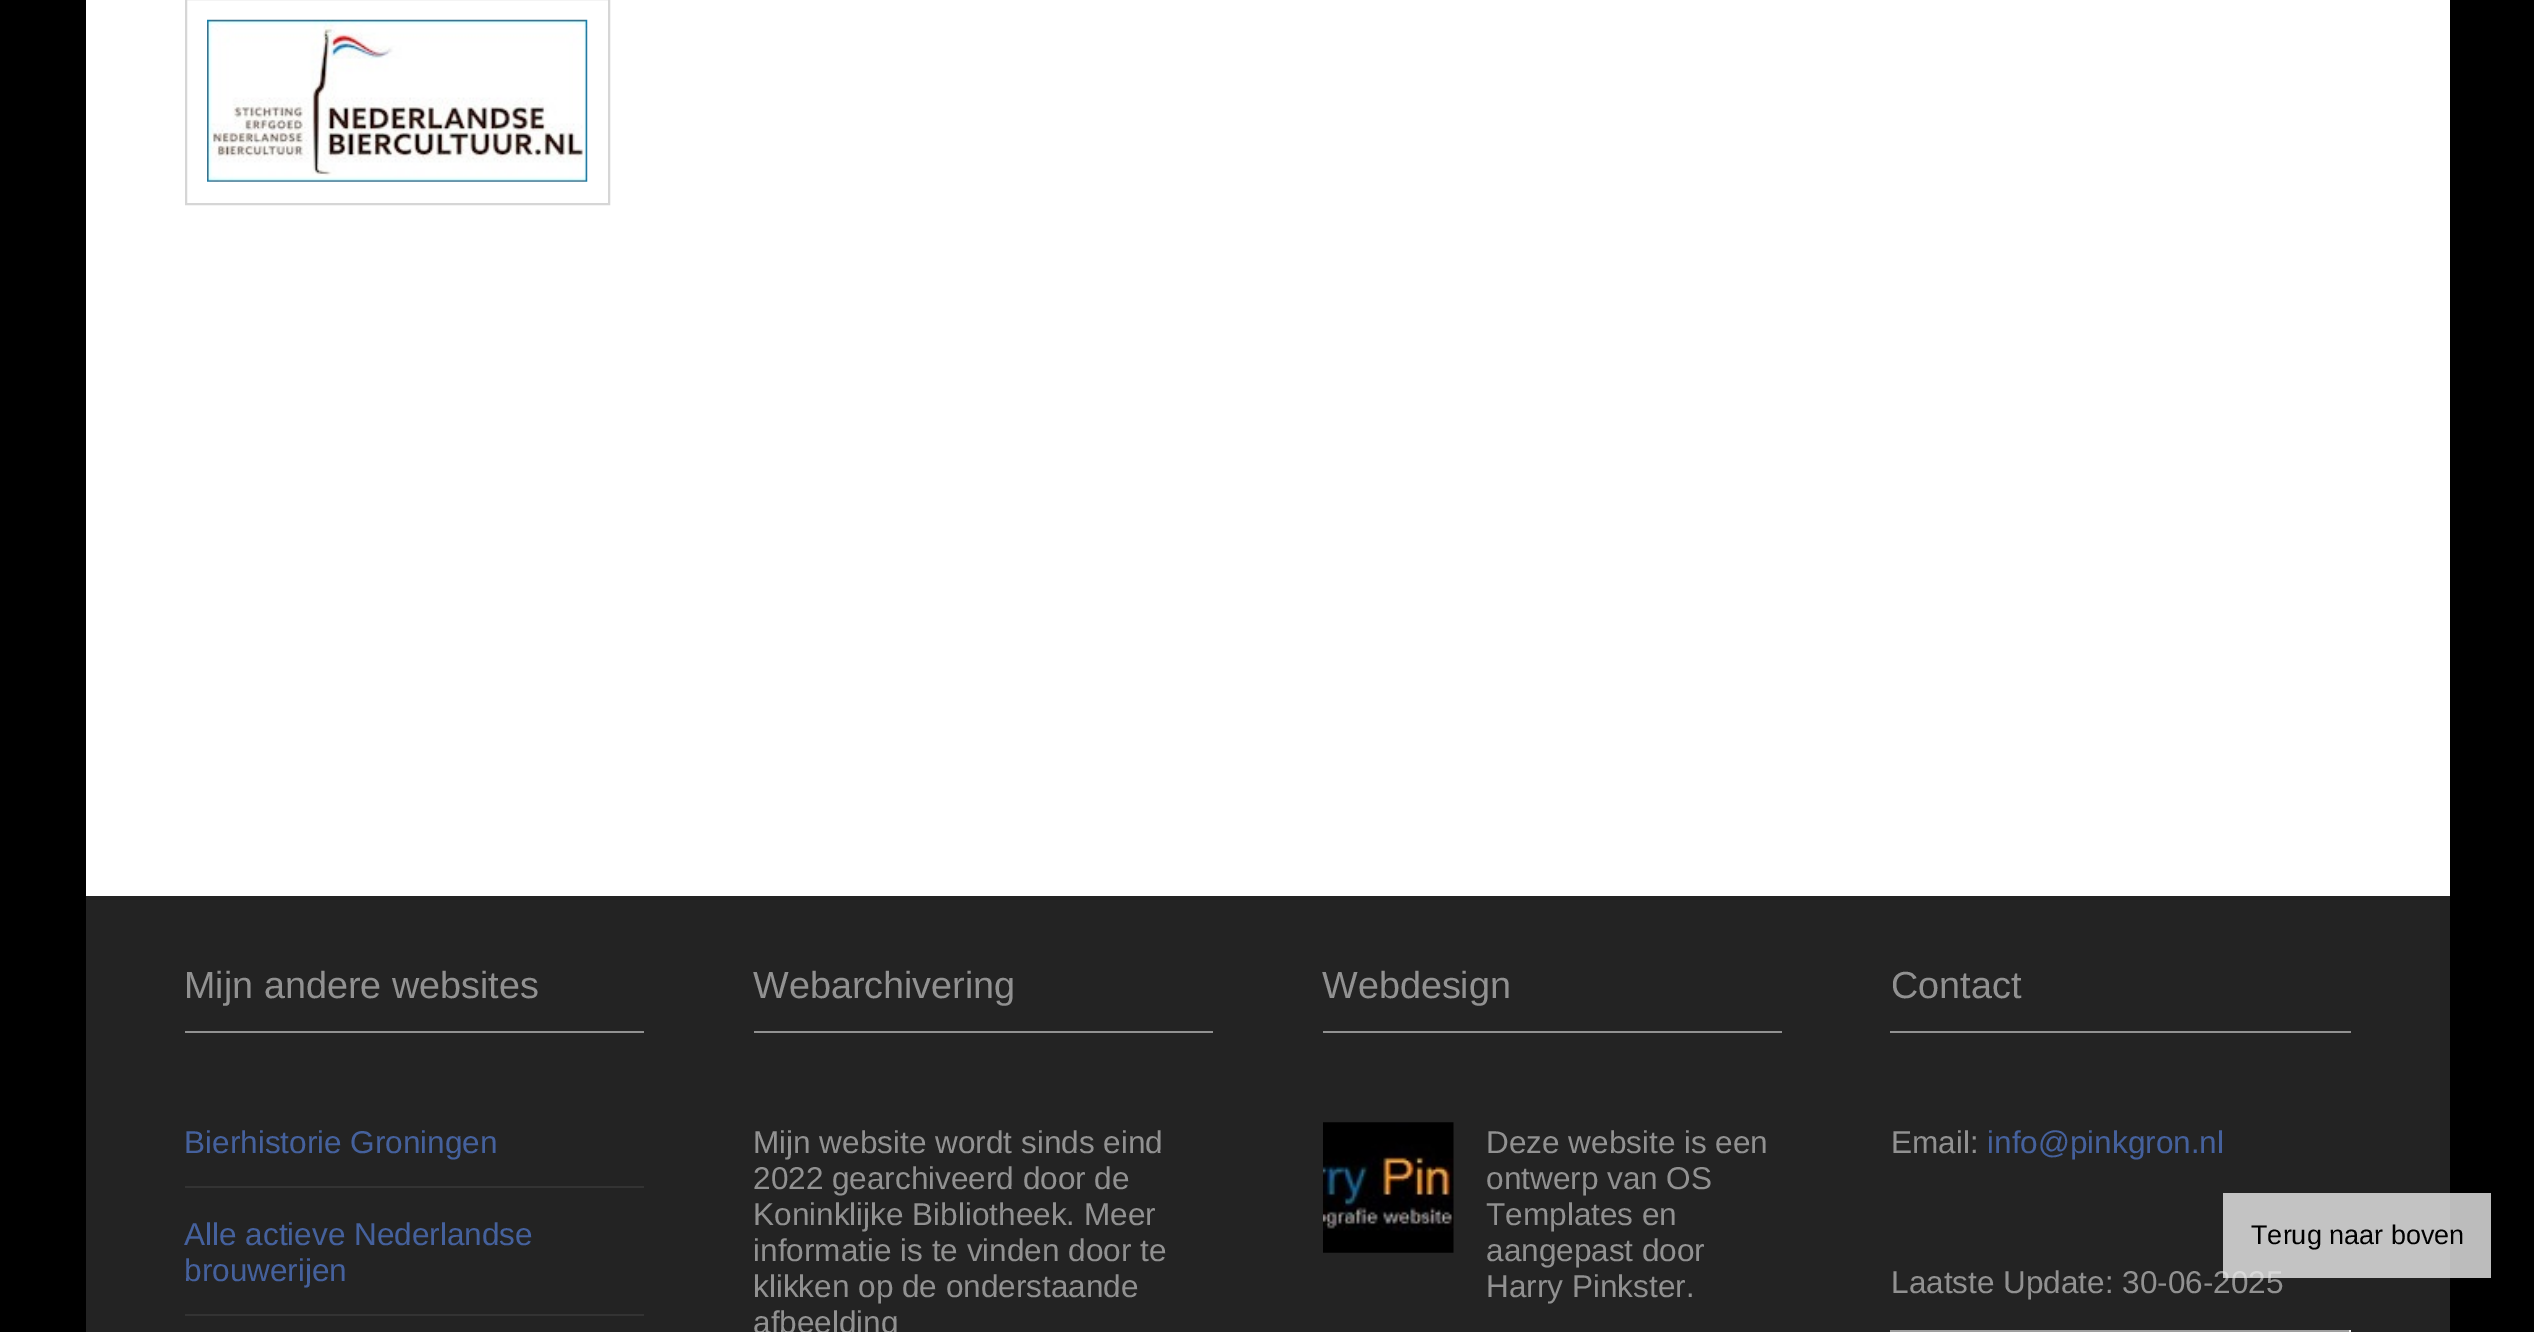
%!PS-Adobe-3.0
%%BoundingBox: 0 0 2534 1332
%%LanguageLevel: 3
%%Pages: 1
%%EndComments
%%BeginProlog
/setink { dup -16 bitshift 255 div exch dup -8 bitshift 255 and 255 div exch 255 and 255 div setrgbcolor } def
/usefont { [ exch dup neg 0 0 3 -1 roll 0 0 ] selectfont } def
/setalpha { dup .setfillconstantalpha .setstrokeconstantalpha } def
/drawimage { 5 dict begin { /h /w /y /x /name } { exch def } forall
  gsave x y translate w h scale
  w h 8 [w 0 0 h 0 0] name (r) file false 3 colorimage grestore end } def
%%EndProlog
%%BeginSetup
<< /PageSize [2534 1332] /PageUsesTransparency true >> setpagedevice
%%EndSetup
%%Page: 1 1
0 .pushpdf14devicefilter
0 1332 translate 1 -1 scale
4 setmiterlimit
16#000000 setink
0 0 2534 1332 rectfill
16#FFFFFF setink
86 0 2364 896 rectfill
16#D6D6D6 setink
2 setlinewidth
186 -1 423 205 rectstroke
(img1.raw) 207 19 381 163 drawimage
16#232323 setink
86 896 2364 436 rectfill
16#919191 setink
185 1031 459 2 rectfill
/LiberationSans-Regular 37.75 usefont
184 998 moveto (Mijn andere websites) show
/LiberationSans-Regular 31.5 usefont
16#45619D setink
184 1153 moveto (Bierhistorie Groningen) show
16#333333 setink
185 1186 459 2 rectfill
16#45619D setink
184 1245 moveto (Alle actieve Nederlandse) show
184 1281 moveto (brouwerijen) show
16#333333 setink
185 1314 459 2 rectfill
16#919191 setink
754 1031 459 2 rectfill
/LiberationSans-Regular 37.75 usefont
753 998 moveto (Webarchivering) show
/LiberationSans-Regular 31.5 usefont
[
    [(Mijn website wordt sinds eind) 753 1153]
    [(2022 gearchiveerd door de) 753 1189]
    [(Koninklijke Bibliotheek. Meer) 753 1225]
    [(informatie is te vinden door te) 753 1261]
    [(klikken op de onderstaande) 753 1297]
    [(afbeelding) 753 1333]
] { aload pop moveto show } forall
1323 1031 459 2 rectfill
/LiberationSans-Regular 37.75 usefont
1322 998 moveto (Webdesign) show
(img2.raw) 1323 1122 131 131 drawimage
/LiberationSans-Regular 31.5 usefont
[
    [(Deze website is een) 1486 1153]
    [(ontwerp van OS) 1486 1189]
    [(Templates en) 1486 1225]
    [(aangepast door) 1486 1261]
    [(Harry Pinkster.) 1486 1297]
] { aload pop moveto show } forall
1890 1031 461 2 rectfill
/LiberationSans-Regular 37.75 usefont
1891 998 moveto (Contact) show
/LiberationSans-Regular 31.5 usefont
1891 1153 moveto (Email:) show
16#45619D setink
1987 1153 moveto (info@pinkgron.nl) show
16#919191 setink
1891 1293 moveto (Laatste Update: 30-06-2025) show
[
    [1890 1330 461 2 16#9F9F9F]
    [2349 1330 2 2 16#EEEEEE]
] { aload pop setink rectfill } forall
0.8 setalpha
[
    [2223 1193 268 85 16#EBEBEB]
] { aload pop setink rectfill } forall
/LiberationSans-Regular 27 usefont
1 setalpha
16#000000 setink
2251 1244 moveto (Terug naar boven) show
.poppdf14devicefilter showpage
%%EOF
